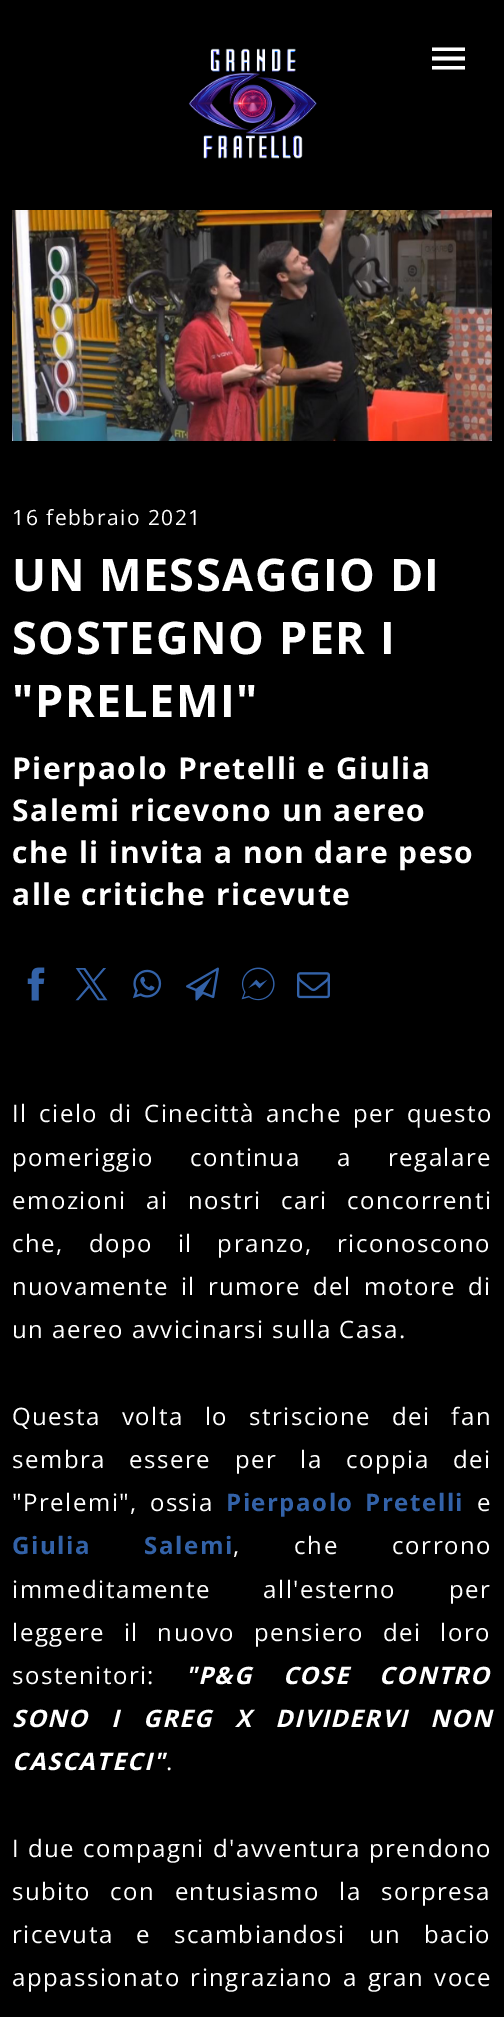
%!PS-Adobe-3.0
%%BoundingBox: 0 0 504 2017
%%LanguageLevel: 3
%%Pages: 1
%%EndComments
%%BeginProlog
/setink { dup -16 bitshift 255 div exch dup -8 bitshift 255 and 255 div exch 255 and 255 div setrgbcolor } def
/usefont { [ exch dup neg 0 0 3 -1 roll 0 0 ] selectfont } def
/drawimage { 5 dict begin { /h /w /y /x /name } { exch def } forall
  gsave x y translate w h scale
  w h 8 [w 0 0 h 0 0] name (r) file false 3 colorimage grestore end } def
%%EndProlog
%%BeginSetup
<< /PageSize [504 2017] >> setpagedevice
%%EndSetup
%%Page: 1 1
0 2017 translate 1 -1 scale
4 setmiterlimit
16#000000 setink
0 0 504 2017 rectfill
(img1.raw) 188 48 130 111 drawimage
16#FFFFFF setink
432 69.5 moveto 465 69.5 lineto 465 66 lineto 432 66 lineto closepath 432 60.5 moveto 465 60.5 lineto 465 56.5 lineto 432 56.5 lineto closepath 432 47.5 moveto 432 51 lineto 465 51 lineto 465 47.5 lineto closepath fill
(img2.raw) 12 210 480 231 drawimage
/OpenSans-Regular 21 usefont
12 525 moveto 1.5 0 (16 febbraio 2021) ashow
/OpenSans-Bold 45 usefont
12 591 moveto 1.5 0 (UN MESSAGGIO DI) ashow
12 654 moveto 1.5 0 (SOSTEGNO PER I) ashow
12 717 moveto 1.5 0 ("PRELEMI") ashow
/OpenSans-Bold 30 usefont
12 779 moveto 1.5 0 (Pierpaolo Pretelli e Giulia) ashow
12 821 moveto 1.5 0 (Salemi ricevono un aereo) ashow
12 863 moveto 1.5 0 (che li invita a non dare peso) ashow
12 905 moveto 1.5 0 (alle critiche ricevute) ashow
(img3.raw) 27 967 18 34 drawimage
(img4.raw) 75 968 33 33 drawimage
(img5.raw) 133 969 29 30 drawimage
(img6.raw) 186 967 33 34 drawimage
(img7.raw) 241 967 34 34 drawimage
(img8.raw) 297 972 33 27 drawimage
/OpenSans-Regular 24 usefont
12 1122 moveto 3.5 0 32 1.5 0 (Il cielo di Cinecittà anche per questo) awidthshow
12 1166 moveto 28.5 0 32 1.5 0 (pomeriggio continua a regalare) awidthshow
12 1209 moveto 11.5 0 32 1.5 0 (emozioni ai nostri cari concorrenti) awidthshow
12 1252 moveto 17 0 32 1.5 0 (che, dopo il pranzo, riconoscono) awidthshow
12 1295 moveto 4.25 0 32 1.5 0 (nuovamente il rumore del motore di) awidthshow
12 1338 moveto 1.5 0 (un aereo avvicinarsi sulla Casa.) ashow
12 1425 moveto 13 0 32 1.5 0 (Questa volta lo striscione dei fan) awidthshow
12 1468 moveto 15.5 0 32 1.5 0 (sembra essere per la coppia dei) awidthshow
12 1511 moveto 4 0 32 1.5 0 ("Prelemi", ossia) awidthshow
/OpenSans-Bold 24 usefont
16#3362A8 setink
226 1511 moveto 4 0 32 1.5 0 (Pierpaolo Pretelli) awidthshow
/OpenSans-Regular 24 usefont
16#FFFFFF setink
477 1511 moveto 1.5 0 (e) ashow
/OpenSans-Bold 24 usefont
16#3362A8 setink
12 1554 moveto 46 0 32 1.5 0 (Giulia Salemi) awidthshow
/OpenSans-Regular 24 usefont
16#FFFFFF setink
233 1554 moveto 46 0 32 1.5 0 (, che corrono) awidthshow
12 1598 moveto 45 0 32 1.5 0 (immeditamente all'esterno per) awidthshow
12 1641 moveto 11 0 32 1.5 0 (leggere il nuovo pensiero dei loro) awidthshow
12 1684 moveto 1.5 0 (sostenitori:) ashow
/OpenSans-BoldItalic 24 usefont
185 1684 moveto 22 0 32 1.5 0 ("P&G COSE CONTRO) awidthshow
12 1727 moveto 14.5 0 32 1.5 0 (SONO I GREG X DIVIDERVI NON) awidthshow
12 1770 moveto 1.5 0 (CASCATECI") ashow
/OpenSans-Regular 24 usefont
166 1770 moveto 1.5 0 (.) ashow
12 1857 moveto 1.5 0 (I due compagni d'avventura prendono) ashow
12 1900 moveto 11.5 0 32 1.5 0 (subito con entusiasmo la sorpresa) awidthshow
12 1943 moveto 15 0 32 1.5 0 (ricevuta e scambiandosi un bacio) awidthshow
12 1986 moveto 2 0 32 1.5 0 (appassionato ringraziano a gran voce) awidthshow
showpage
%%EOF
